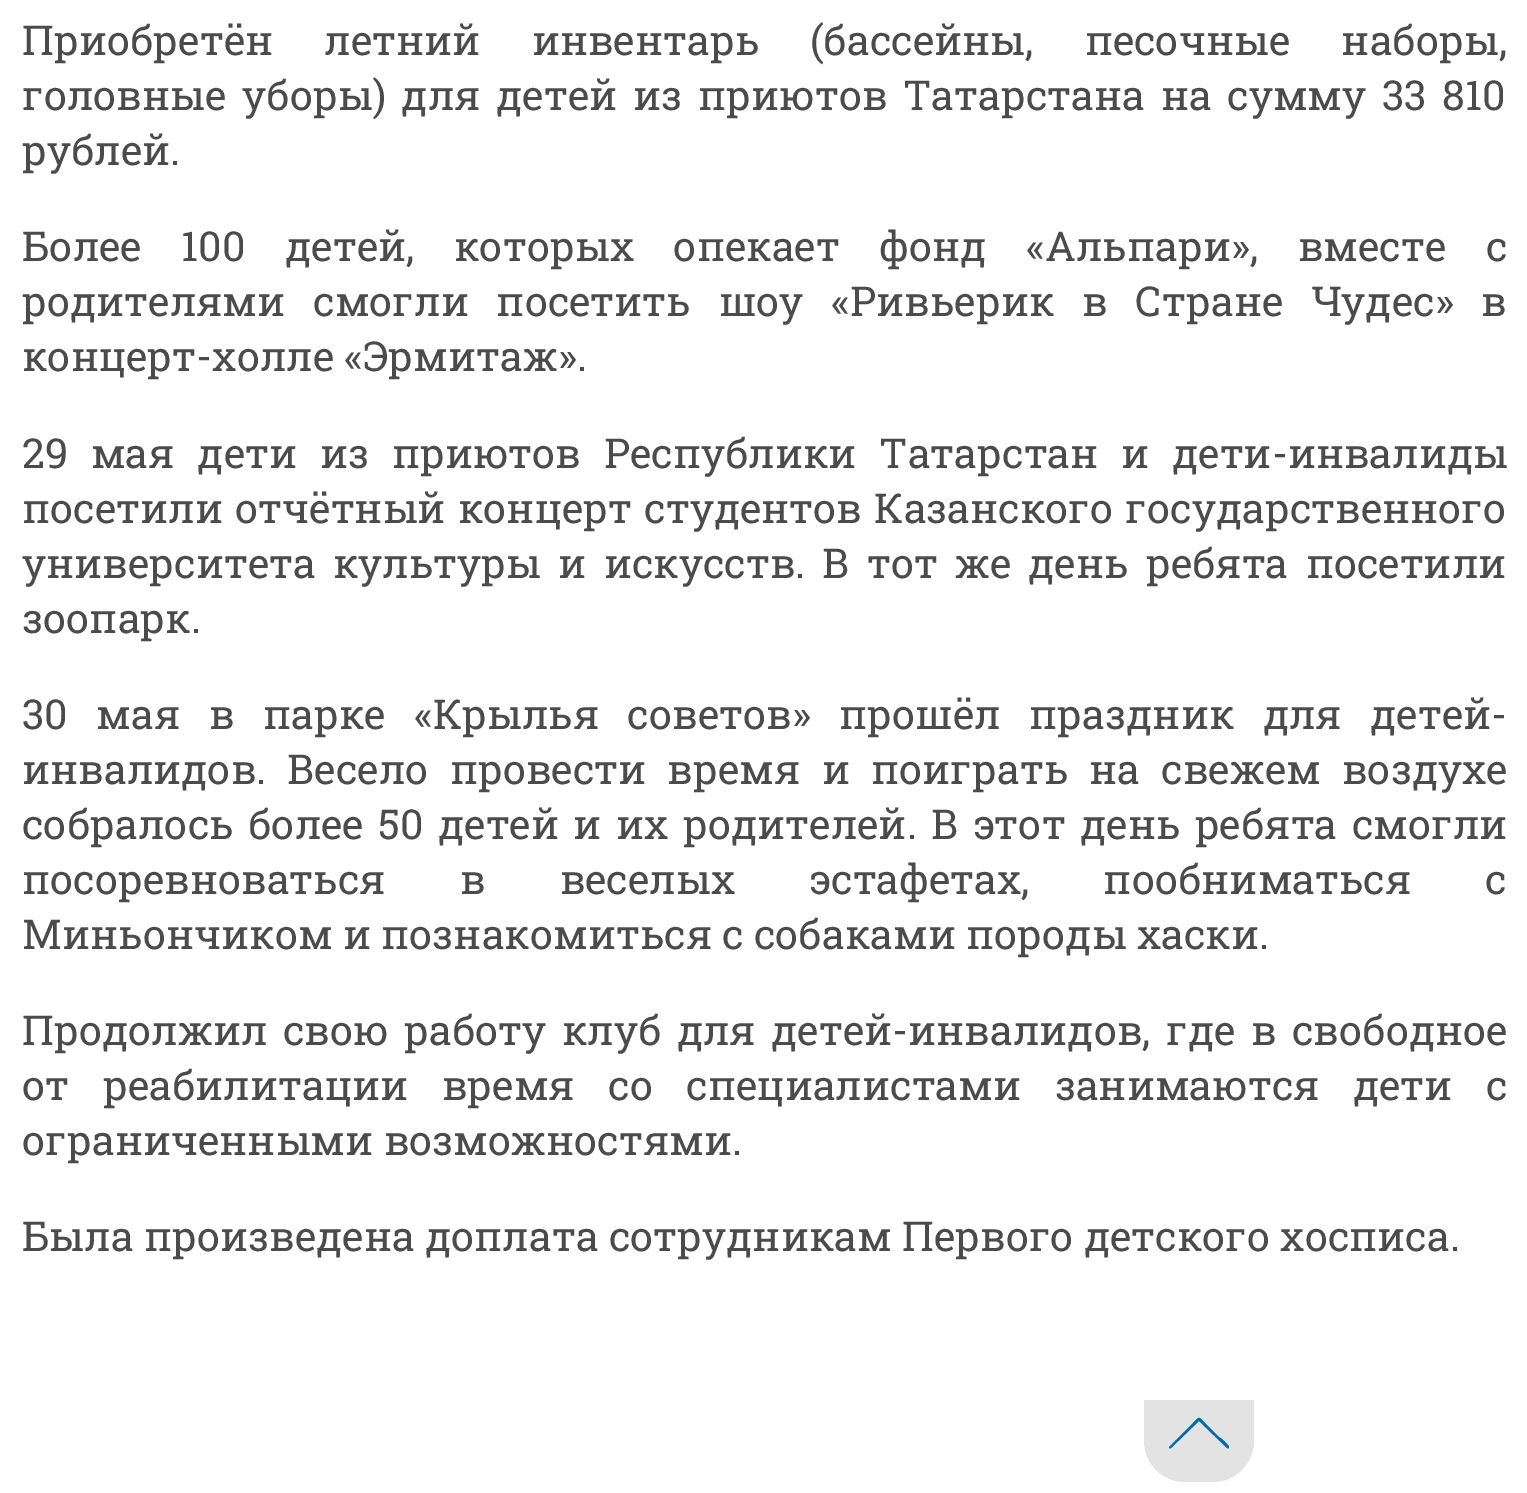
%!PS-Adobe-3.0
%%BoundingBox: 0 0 1527 1493
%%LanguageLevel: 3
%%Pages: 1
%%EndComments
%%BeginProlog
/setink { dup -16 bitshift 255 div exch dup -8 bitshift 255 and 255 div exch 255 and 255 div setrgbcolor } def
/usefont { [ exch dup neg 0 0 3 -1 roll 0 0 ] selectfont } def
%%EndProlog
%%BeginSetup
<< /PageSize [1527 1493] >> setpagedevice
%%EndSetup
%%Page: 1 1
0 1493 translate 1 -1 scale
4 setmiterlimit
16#FFFFFF setink
0 0 1527 1493 rectfill
/RobotoSlab-Regular 41.25 usefont
16#4B4B4B setink
22 55 moveto 41 0 32 (Приобретён летний инвентарь \(бассейны, песочные наборы,) widthshow
22 110 moveto 5.5 0 32 (головные уборы\) для детей из приютов Татарстана на сумму 33 810) widthshow
22 165 moveto (рублей.) show
22 261 moveto 29.5 0 32 (Более 100 детей, которых опекает фонд «Альпари», вместе с) widthshow
22 316 moveto 17.5 0 32 (родителями смогли посетить шоу «Ривьерик в Стране Чудес» в) widthshow
22 371 moveto (концерт-холле «Эрмитаж».) show
22 468 moveto 12.5 0 32 (29 мая дети из приютов Республики Татарстан и дети-инвалиды) widthshow
22 523 moveto 2 0 32 (посетили отчётный концерт студентов Казанского государственного) widthshow
22 578 moveto 7 0 32 (университета культуры и искусств. В тот же день ребята посетили) widthshow
22 633 moveto (зоопарк.) show
22 729 moveto 18.25 0 32 (30 мая в парке «Крылья советов» прошёл праздник для детей-) widthshow
22 784 moveto 11 0 32 (инвалидов. Весело провести время и поиграть на свежем воздухе) widthshow
22 839 moveto 4.25 0 32 (собралось более 50 детей и их родителей. В этот день ребята смогли) widthshow
22 894 moveto 64 0 32 (посоревноваться в веселых эстафетах, пообниматься с) widthshow
22 949 moveto (Миньончиком и познакомиться с собаками породы хаски.) show
22 1045 moveto 5.25 0 32 (Продолжил свою работу клуб для детей-инвалидов, где в свободное) widthshow
22 1100 moveto 23.25 0 32 (от реабилитации время со специалистами занимаются дети с) widthshow
22 1155 moveto (ограниченными возможностями.) show
22 1251 moveto (Была произведена доплата сотрудникам Первого детского хосписа.) show
16#E3E3E3 setink
1144 1400 moveto 1254 1400 lineto 1254 1441 lineto 1254 1463.5 1235.5 1482 1213 1482 curveto 1185 1482 lineto 1162.5 1482 1144 1463.5 1144 1441 curveto closepath fill
16#006AAE setink
1229 1447 moveto 1229 1448 1228 1449 1227 1448 curveto 1199 1421 lineto 1171 1448 lineto 1170 1449 1169 1448 1169 1447 curveto 1193 1423 lineto 1200 1416 1198 1416 1205 1423 curveto 1219 1437 lineto 1221 1438 1229 1445 1229 1447 curveto closepath fill
showpage
%%EOF
